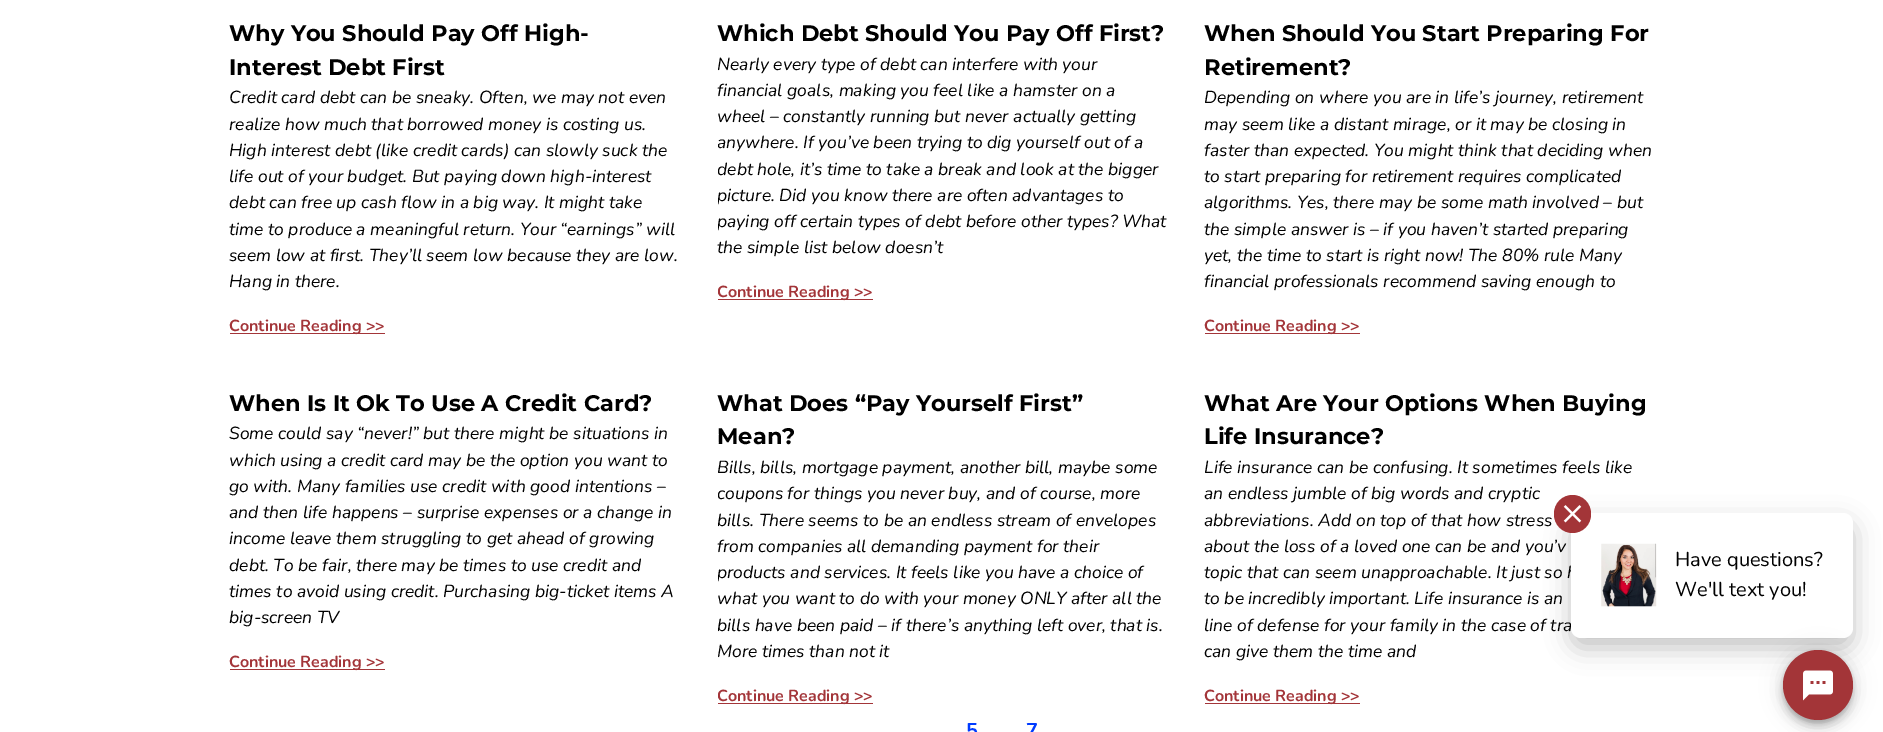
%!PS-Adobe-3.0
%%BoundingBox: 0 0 1883 732
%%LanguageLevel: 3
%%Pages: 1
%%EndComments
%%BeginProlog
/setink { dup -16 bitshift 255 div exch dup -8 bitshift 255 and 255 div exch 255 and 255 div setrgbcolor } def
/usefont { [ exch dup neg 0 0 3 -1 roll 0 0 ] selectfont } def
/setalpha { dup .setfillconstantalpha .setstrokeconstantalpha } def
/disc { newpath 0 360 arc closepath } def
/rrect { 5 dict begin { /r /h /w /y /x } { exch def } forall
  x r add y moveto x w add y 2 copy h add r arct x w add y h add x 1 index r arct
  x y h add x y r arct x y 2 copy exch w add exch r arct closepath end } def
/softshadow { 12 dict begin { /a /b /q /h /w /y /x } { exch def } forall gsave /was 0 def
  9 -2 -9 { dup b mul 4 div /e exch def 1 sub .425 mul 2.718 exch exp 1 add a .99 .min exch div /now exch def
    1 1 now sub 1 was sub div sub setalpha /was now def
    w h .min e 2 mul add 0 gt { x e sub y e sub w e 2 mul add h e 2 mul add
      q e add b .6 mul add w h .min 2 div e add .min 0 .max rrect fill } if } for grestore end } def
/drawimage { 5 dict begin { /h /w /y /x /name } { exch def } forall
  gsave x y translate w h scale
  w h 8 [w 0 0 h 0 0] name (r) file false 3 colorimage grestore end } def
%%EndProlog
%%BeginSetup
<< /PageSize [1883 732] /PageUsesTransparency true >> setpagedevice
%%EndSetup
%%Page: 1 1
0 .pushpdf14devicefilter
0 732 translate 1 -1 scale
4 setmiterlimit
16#FFFFFF setink
0 0 1883 732 rectfill
/Montserrat-Bold 22.5 usefont
16#000000 setink
229 41 moveto (Why You Should Pay Off High-) show
229 75 moveto (Interest Debt First) show
/Nunito-Italic 17.5 usefont
[
    [(Credit card debt can be sneaky. Often, we may not even) 229 103]
    [(realize how much that borrowed money is costing us.) 229 130]
    [(High interest debt \(like credit cards\) can slowly suck the) 229 156]
    [(life out of your budget. But paying down high-interest) 229 182]
    [(debt can free up cash flow in a big way. It might take) 229 208]
    [(time to produce a meaningful return. Your “earnings” will) 229 235]
    [(seem low at first. They’ll seem low because they are low.) 229 261]
    [(Hang in there.) 229 287]
] { aload pop moveto show } forall
16#A33539 setink
230 333 155 1 rectfill
/Nunito-Bold 16 usefont
229 331 moveto (Continue Reading >>) show
/Montserrat-Bold 22.5 usefont
16#000000 setink
717 41 moveto (Which Debt Should You Pay Off First?) show
/Nunito-Italic 17.5 usefont
[
    [(Nearly every type of debt can interfere with your) 717 70]
    [(financial goals, making you feel like a hamster on a) 717 96]
    [(wheel – constantly running but never actually getting) 717 122]
] { aload pop moveto show } forall
gsave
718 18 450 326 rectclip
[
    [(anywhere. If you’ve been trying to dig yourself out of a) 717 148]
    [(debt hole, it’s time to take a break and look at the bigger) 717 175]
    [(picture. Did you know there are often advantages to) 717 201]
    [(paying off certain types of debt before other types? What) 717 227]
] { aload pop moveto show } forall
grestore
717 253 moveto (the simple list below doesn’t) show
16#A33539 setink
718 299 155 1 rectfill
gsave
718 18 450 326 rectclip
/Nunito-Bold 16 usefont
717 297 moveto (Continue Reading >>) show
grestore
/Montserrat-Bold 22.5 usefont
16#000000 setink
1204 41 moveto (When Should You Start Preparing For) show
1204 75 moveto (Retirement?) show
/Nunito-Italic 17.5 usefont
[
    [(Depending on where you are in life’s journey, retirement) 1204 103]
    [(may seem like a distant mirage, or it may be closing in) 1204 130]
    [(faster than expected. You might think that deciding when) 1204 156]
    [(to start preparing for retirement requires complicated) 1204 182]
    [(algorithms. Yes, there may be some math involved – but) 1204 208]
    [(the simple answer is – if you haven’t started preparing) 1204 235]
    [(yet, the time to start is right now! The 80% rule Many) 1204 261]
    [(financial professionals recommend saving enough to) 1204 287]
] { aload pop moveto show } forall
16#A33539 setink
1205 333 155 1 rectfill
/Nunito-Bold 16 usefont
1204 331 moveto (Continue Reading >>) show
/Montserrat-Bold 22.5 usefont
16#000000 setink
229 411 moveto (When Is It Ok To Use A Credit Card?) show
/Nunito-Italic 17.5 usefont
[
    [(Some could say “never!” but there might be situations in) 229 439]
    [(which using a credit card may be the option you want to) 229 466]
    [(go with. Many families use credit with good intentions –) 229 492]
    [(and then life happens – surprise expenses or a change in) 229 518]
    [(income leave them struggling to get ahead of growing) 229 544]
    [(debt. To be fair, there may be times to use credit and) 229 571]
    [(times to avoid using credit. Purchasing big-ticket items A) 229 597]
    [(big-screen TV) 229 623]
] { aload pop moveto show } forall
16#A33539 setink
230 669 155 1 rectfill
/Nunito-Bold 16 usefont
229 667 moveto (Continue Reading >>) show
/Montserrat-Bold 22.5 usefont
16#000000 setink
717 411 moveto (What Does “Pay Yourself First”) show
717 444 moveto (Mean?) show
/Nunito-Italic 17.5 usefont
717 473 moveto (Bills, bills, mortgage payment, another bill, maybe some) show
gsave
718 388 450 325 rectclip
717 499 moveto (coupons for things you never buy, and of course, more) show
717 526 moveto (bills. There seems to be an endless stream of envelopes) show
grestore
717 552 moveto (from companies all demanding payment for their) show
gsave
718 388 450 325 rectclip
717 578 moveto (products and services. It feels like you have a choice of) show
grestore
717 604 moveto (what you want to do with your money ONLY after all the) show
gsave
718 388 450 325 rectclip
717 631 moveto (bills have been paid – if there’s anything left over, that is.) show
grestore
717 657 moveto (More times than not it) show
16#A33539 setink
718 703 155 1 rectfill
gsave
718 388 450 325 rectclip
/Nunito-Bold 16 usefont
717 701 moveto (Continue Reading >>) show
grestore
/Montserrat-Bold 22.5 usefont
16#000000 setink
1204 411 moveto (What Are Your Options When Buying) show
1204 444 moveto (Life Insurance?) show
/Nunito-Italic 17.5 usefont
[
    [(Life insurance can be confusing. It sometimes feels like) 1204 473]
    [(an endless jumble of big words and cryptic) 1204 499]
    [(abbreviations. Add on top of that how stress) 1204 526]
    [(about the loss of a loved one can be and you’v) 1204 552]
    [(topic that can seem unapproachable. It just so h) 1204 578]
    [(to be incredibly important. Life insurance is an) 1204 604]
    [(line of defense for your family in the case of tra) 1204 631]
    [(can give them the time and) 1204 657]
] { aload pop moveto show } forall
16#A33539 setink
1205 703 155 1 rectfill
/Nunito-Bold 16 usefont
1204 701 moveto (Continue Reading >>) show
/Nunito-Bold 20 usefont
16#003BFF setink
966 737 moveto (5) show
1026 737 moveto (7) show
16#000000 setink
1571 523 282 125 10 12.5 0.24 softshadow
16#FFFFFF setink
1571 513 282 125 10 rrect fill
16#A33538 setink
1554 495 37 38 18.5 rrect fill
(img1.raw) 1563 505 19 18 drawimage
(img2.raw) 1601 543 56 64 drawimage
/Nunito-Regular 20 usefont
16#000000 setink
1675 566 moveto (Have questions?) show
1675 596 moveto (We'll text you!) show
1783 651 70 70 35 11 0.12 softshadow
1783 658 70 70 35 6 0.14 softshadow
1784 655 67 68 33.5 3 0.2 softshadow
16#A33538 setink
1818 685 35 disc fill
(img3.raw) 1803 670 30 31 drawimage
.poppdf14devicefilter showpage
%%EOF
